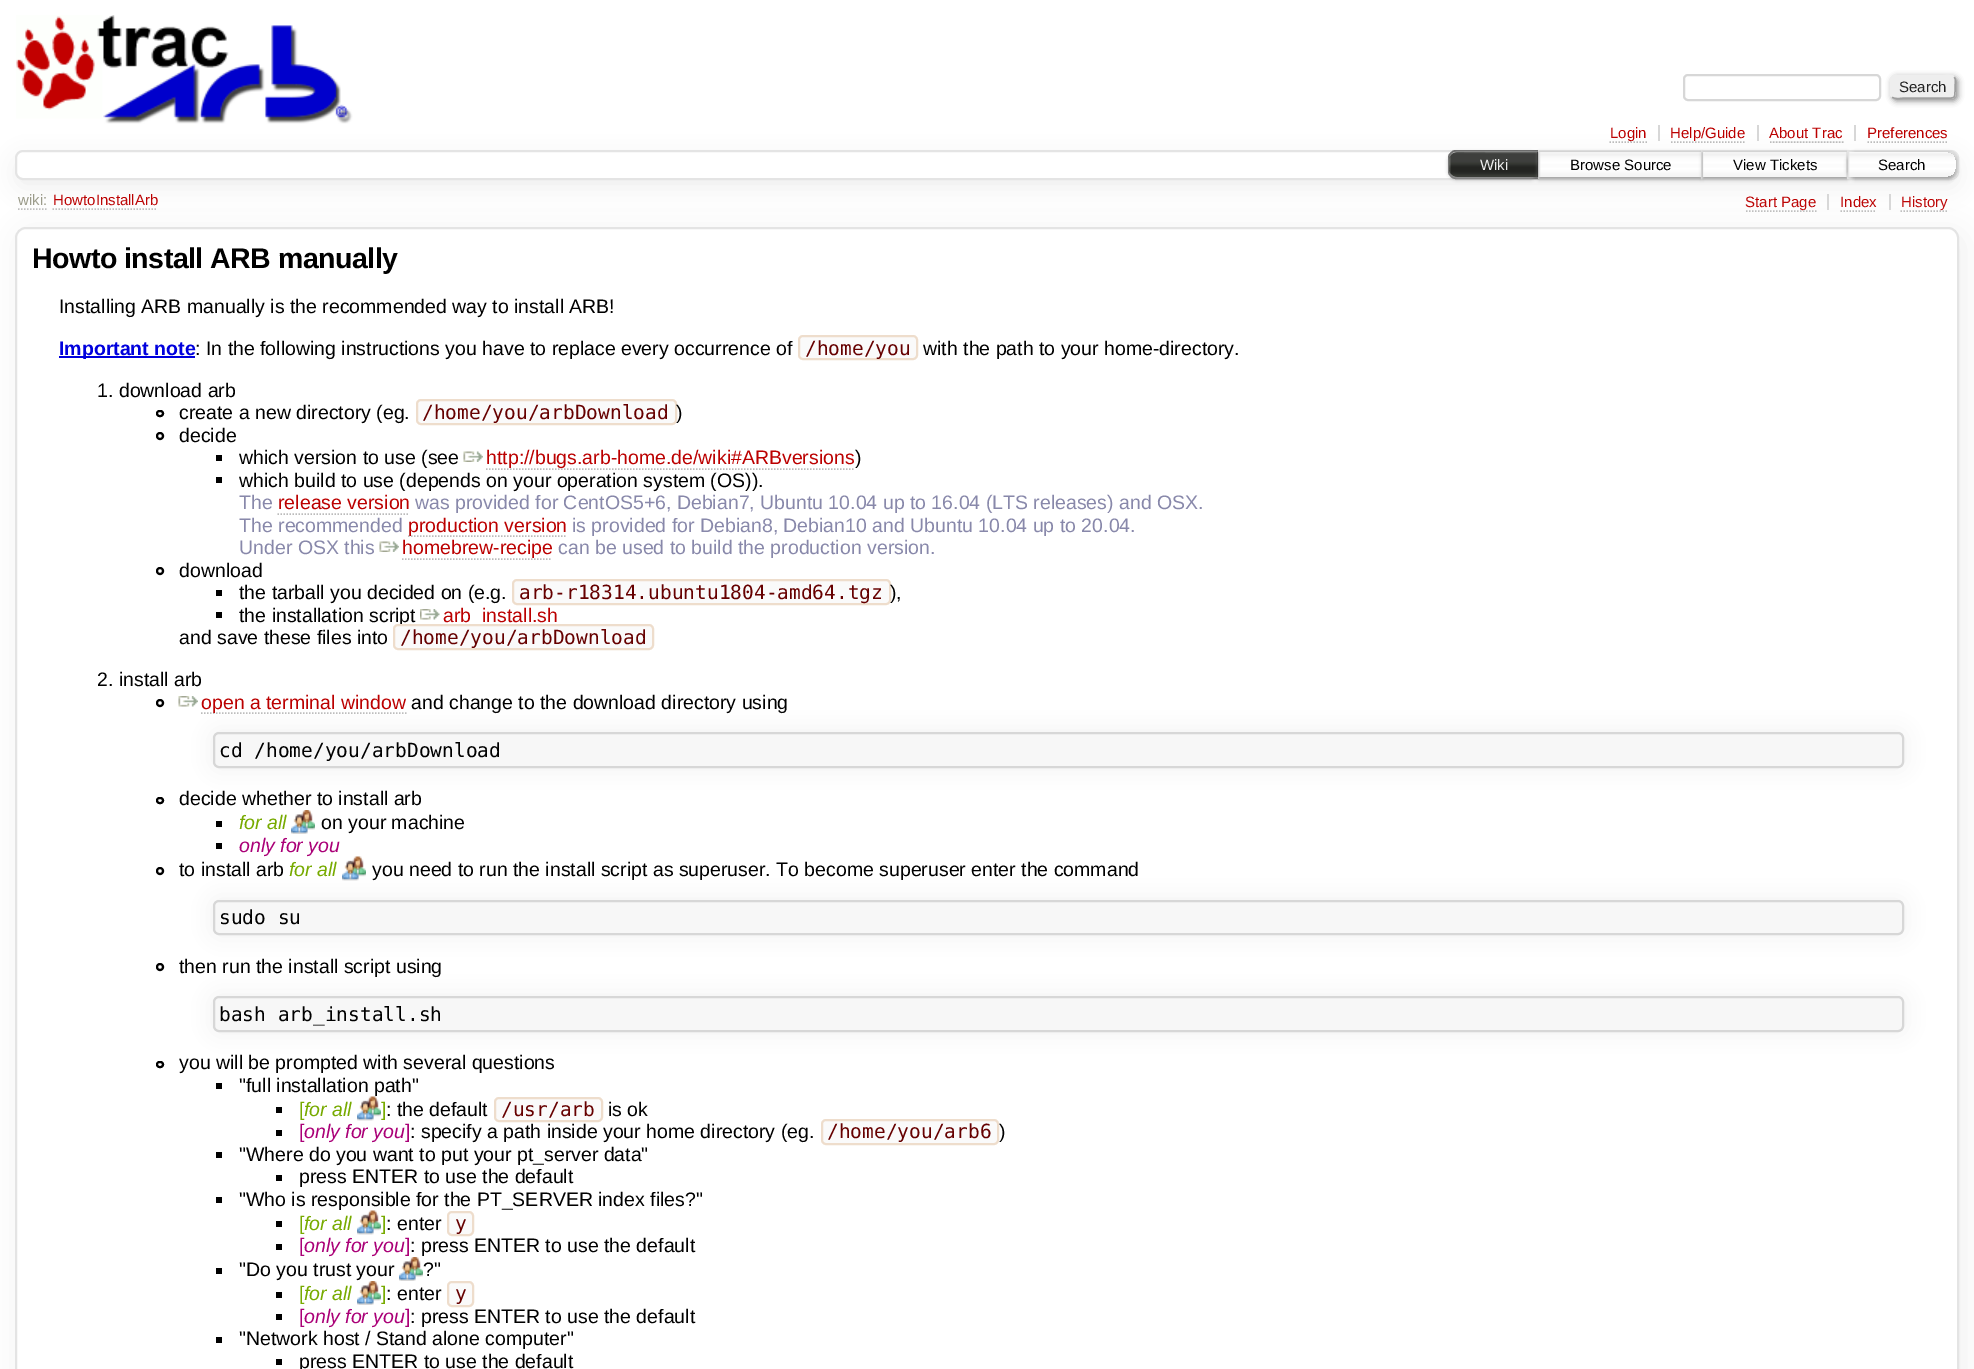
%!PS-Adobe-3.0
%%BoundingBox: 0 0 1974 1369
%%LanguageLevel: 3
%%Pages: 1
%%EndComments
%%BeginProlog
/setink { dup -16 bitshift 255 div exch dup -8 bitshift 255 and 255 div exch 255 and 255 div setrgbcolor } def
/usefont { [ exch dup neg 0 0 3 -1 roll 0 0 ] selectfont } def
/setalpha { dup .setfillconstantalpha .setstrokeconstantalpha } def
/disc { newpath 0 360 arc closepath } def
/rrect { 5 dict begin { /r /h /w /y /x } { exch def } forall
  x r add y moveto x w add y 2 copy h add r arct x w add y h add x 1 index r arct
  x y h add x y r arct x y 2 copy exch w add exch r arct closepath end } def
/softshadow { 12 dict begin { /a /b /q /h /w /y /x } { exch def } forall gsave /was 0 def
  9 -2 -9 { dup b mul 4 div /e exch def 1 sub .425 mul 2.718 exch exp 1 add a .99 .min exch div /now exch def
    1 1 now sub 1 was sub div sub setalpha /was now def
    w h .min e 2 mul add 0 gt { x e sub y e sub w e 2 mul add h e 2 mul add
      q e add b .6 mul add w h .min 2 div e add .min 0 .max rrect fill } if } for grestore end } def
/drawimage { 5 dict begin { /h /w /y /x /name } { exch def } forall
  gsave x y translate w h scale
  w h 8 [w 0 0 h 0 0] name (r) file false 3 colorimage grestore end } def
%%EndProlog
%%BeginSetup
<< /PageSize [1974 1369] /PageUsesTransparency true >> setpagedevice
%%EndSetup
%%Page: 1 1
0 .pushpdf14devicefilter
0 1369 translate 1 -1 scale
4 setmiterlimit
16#FFFFFF setink
0 0 1974 1369 rectfill
(img1.raw) 16 15 337 109 drawimage
16#D7D7D7 setink
2 setlinewidth
1684 75 196 25 4 rrect stroke
16#888888 setink
1892 77 66 24 5 3 1 softshadow
16#EEEEEE setink
1890 75 66 24 5 rrect fill
16#9F9F9F setink
1.5 setlinewidth
1954 77 moveto 1956.5 79 1955 84 1955 87 curveto 1955 100 1956 98 1942 98 curveto 1904 98 lineto 1903.5 98 1894.5 100 1892 97 curveto stroke
16#EEEEEE setink
1892 97 moveto 1889.5 95 1891 90 1891 87 curveto 1891 74 1890 76 1904 76 curveto 1942 76 lineto 1942.5 76 1951.5 74 1954 77 curveto stroke
/LiberationSans-Regular 15 usefont
16#222222 setink
1899 92 moveto (Search) show
gsave
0 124 moveto 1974 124 lineto 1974 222 lineto 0 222 lineto closepath 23 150 moveto 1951 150 lineto 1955.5 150 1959 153.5 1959 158 curveto 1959 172 lineto 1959 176.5 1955.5 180 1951 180 curveto 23 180 lineto 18.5 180 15 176.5 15 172 curveto 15 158 lineto 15 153.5 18.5 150 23 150 curveto closepath eoclip newpath
16#EEEEEE setink
15 158 1944 30 8 11 1 softshadow
grestore
16#D7D7D7 setink
1658 125 2 16 rectfill
16#BBBBBB setink
[1.5 1.5] 0 setdash
1609.5 142 moveto 1647 142 lineto stroke
16#BB0000 setink
1610 138 moveto (Login) show
16#D7D7D7 setink
1757 125 2 16 rectfill
16#BBBBBB setink
1671 142 moveto 1746 142 lineto stroke
16#BB0000 setink
1670 138 moveto (Help/Guide) show
16#D7D7D7 setink
1854 125 2 16 rectfill
16#BB0000 setink
1769 138 moveto (About Trac) show
16#BBBBBB setink
1770 142 moveto 1843.5 142 lineto stroke
16#BB0000 setink
1867 138 moveto (Preferences) show
16#BBBBBB setink
1867.5 142 moveto 1948.5 142 lineto stroke
16#E4E4E4 setink
2 setlinewidth
[] 0 setdash
16 151 1942 28 7 rrect stroke
(img2.raw) 1448 153 9 25 drawimage
16#666666 setink
1456 151 moveto 1538 151 lineto 1538 178 lineto 1456 178 lineto 1452 178 1449 175 1449 171 curveto 1449 158 lineto 1449 154 1452 151 1456 151 curveto closepath stroke
16#999999 setink
1449 153 89 26 8 2 1 softshadow
16#000000 setink
1457 152 moveto 1538 152 lineto 1538 177 lineto 1457 177 lineto 1452.5 177 1449 173.5 1449 169 curveto 1449 160 lineto 1449 155.5 1452.5 152 1457 152 curveto closepath fill
(img3.raw) 1449 151 89 26 drawimage
16#EEEEEE setink
1480 170 moveto (Wiki) show
16#FFFFFF setink
1540 156 2 20 rectfill
(img4.raw) 1537 153 164 24 drawimage
16#E4E4E4 setink
1539 151 163 27 rectstroke
gsave
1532 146 moveto 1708 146 lineto 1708 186 lineto 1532 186 lineto closepath 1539 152 moveto 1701 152 lineto 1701 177 lineto 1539 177 lineto closepath eoclip newpath
16#999999 setink
1539 153 162 26 0 2 1 softshadow
grestore
16#000000 setink
1570 170 moveto (Browse Source) show
16#FFFFFF setink
1703 152 2 25 rectfill
(img5.raw) 1703 153 143 24 drawimage
16#E4E4E4 setink
1702 151 145 27 rectstroke
gsave
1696 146 moveto 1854 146 lineto 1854 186 lineto 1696 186 lineto closepath 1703 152 moveto 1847 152 lineto 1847 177 lineto 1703 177 lineto closepath eoclip newpath
16#999999 setink
1703 153 144 26 0 2 1 softshadow
grestore
16#000000 setink
1733 170 moveto (View Tickets) show
16#FFFFFF setink
1847 150 moveto 1950 150 lineto 1954.5 150 1958 153.5 1958 158 curveto 1958 171 lineto 1958 175.5 1954.5 179 1950 179 curveto 1847 179 lineto closepath fill
(img6.raw) 1849 153 108 24 drawimage
16#E4E4E4 setink
1848 151 moveto 1950 151 lineto 1954 151 1957 154 1957 158 curveto 1957 171 lineto 1957 175 1954 178 1950 178 curveto 1848 178 lineto closepath stroke
gsave
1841 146 moveto 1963 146 lineto 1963 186 lineto 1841 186 lineto closepath 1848 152 moveto 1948 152 lineto 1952.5 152 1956 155.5 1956 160 curveto 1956 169 lineto 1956 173.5 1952.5 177 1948 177 curveto 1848 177 lineto closepath eoclip newpath
16#999999 setink
1848 153 108 26 8 2 1 softshadow
grestore
16#000000 setink
1878 170 moveto (Search) show
16#BBBBBB setink
1.5 setlinewidth
[1.5 1.5] 0 setdash
18 209 moveto 46.5 209 lineto stroke
16#999988 setink
18 205 moveto (wiki:) show
16#BBBBBB setink
52.5 209 moveto 157.5 209 lineto stroke
16#BB0000 setink
53 205 moveto (HowtoInstallArb) show
16#D7D7D7 setink
1827 194 2 16 rectfill
16#BBBBBB setink
1746 211 moveto 1816.5 211 lineto stroke
16#BB0000 setink
1745 207 moveto (Start Page) show
16#D7D7D7 setink
1889 194 2 16 rectfill
16#BB0000 setink
1840 207 moveto (Index) show
16#BBBBBB setink
1840.5 211 moveto 1876.5 211 lineto stroke
1900.5 211 moveto 1948.5 211 lineto stroke
16#BB0000 setink
1901 207 moveto (History) show
gsave
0 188 moveto 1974 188 lineto 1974 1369 lineto 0 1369 lineto closepath 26 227 moveto 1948 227 lineto 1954 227 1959 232 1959 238 curveto 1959 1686 lineto 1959 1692 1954 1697 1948 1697 curveto 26 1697 lineto 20 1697 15 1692 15 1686 curveto 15 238 lineto 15 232 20 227 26 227 curveto closepath eoclip newpath
16#EEEEEE setink
20 233 1944 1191 11 14.5 1 softshadow
grestore
16#E4E4E4 setink
2 setlinewidth
[] 0 setdash
16 228 1942 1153 10 rrect stroke
/LiberationSans-Bold 28.5 usefont
16#000000 setink
32 268 moveto -0.5 0 (Howto install ARB manually) ashow
/LiberationSans-Regular 19.5 usefont
59 313 moveto (Installing ARB manually is the recommended way to install ARB!) show
16#0000DD setink
59 356 136 2 rectfill
/LiberationSans-Bold 19.5 usefont
59 355 moveto (Important note) show
/LiberationSans-Regular 19.5 usefont
16#000000 setink
195 355 moveto (: In the following instructions you have to replace every occurrence of) show
16#FAFAFA setink
799 336 118 23 4 rrect gsave fill grestore
16#EEDDCC setink
stroke
/DejaVuSansMono-Regular 19.5 usefont
16#660000 setink
805 355 moveto (/home/you) show
/LiberationSans-Regular 19.5 usefont
16#000000 setink
923 355 moveto (with the path to your home-directory.) show
97 397 moveto (1. download arb) show
157 411 6 5 2.5 rrect stroke
179 419 moveto (create a new directory \(eg.) show
16#FAFAFA setink
417 400 259 24 4 rrect gsave fill grestore
16#EEDDCC setink
stroke
/DejaVuSansMono-Regular 19.5 usefont
16#660000 setink
422 419 moveto (/home/you/arbDownload) show
/LiberationSans-Regular 19.5 usefont
16#000000 setink
676 419 moveto (\)) show
160 436 3 disc stroke
179 442 moveto (decide) show
216 455 6 6 rectfill
239 464 moveto (which version to use \(see) show
(img7.raw) 463 451 20 11 drawimage
16#BBBBBB setink
1.5 setlinewidth
[1.5 1.5] 0 setdash
486 469 moveto 855 469 lineto stroke
16#BB0000 setink
486 464 moveto (http://bugs.arb-home.de/wiki#ARBversions) show
16#000000 setink
855 464 moveto (\)) show
216 477 6 6 rectfill
239 487 moveto (which build to use \(depends on your operation system \(OS\)\).) show
16#8888AA setink
239 509 moveto (The) show
16#BB0000 setink
278 509 moveto (release version) show
16#BBBBBB setink
277.5 514 moveto 409.5 514 lineto stroke
16#8888AA setink
415 509 moveto (was provided for CentOS5+6, Debian7, Ubuntu 10.04 up to 16.04 \(LTS releases\) and OSX.) show
239 532 moveto (The recommended) show
16#BBBBBB setink
408 536 moveto 567 536 lineto stroke
16#BB0000 setink
408 532 moveto (production version) show
16#8888AA setink
572 532 moveto (is provided for Debian8, Debian10 and Ubuntu 10.04 up to 20.04.) show
239 554 moveto (Under OSX this) show
(img8.raw) 379 541 20 11 drawimage
16#BBBBBB setink
402 559 moveto 552 559 lineto stroke
16#BB0000 setink
402 554 moveto (homebrew-recipe) show
16#8888AA setink
558 554 moveto (can be used to build the production version.) show
16#000000 setink
2 setlinewidth
[] 0 setdash
160 571 3 disc stroke
179 577 moveto (download) show
216 590 6 6 rectfill
239 599 moveto (the tarball you decided on \(e.g.) show
16#FAFAFA setink
513 580 377 24 4 rrect gsave fill grestore
16#EEDDCC setink
stroke
/DejaVuSansMono-Regular 19.5 usefont
16#660000 setink
519 599 moveto (arb-r18314.ubuntu1804-amd64.tgz) show
/LiberationSans-Regular 19.5 usefont
16#000000 setink
890 599 moveto (\),) show
216 612 6 6 rectfill
239 622 moveto (the installation script) show
(img9.raw) 420 609 20 11 drawimage
16#BB0000 setink
443 622 moveto (arb_install.sh) show
16#000000 setink
179 644 moveto (and save these files into) show
16#FAFAFA setink
394 625 259 24 4 rrect gsave fill grestore
16#EEDDCC setink
stroke
/DejaVuSansMono-Regular 19.5 usefont
16#660000 setink
400 644 moveto (/home/you/arbDownload) show
/LiberationSans-Regular 19.5 usefont
16#000000 setink
97 686 moveto (2. install arb) show
160 703 3 disc stroke
(img10.raw) 178 696 20 11 drawimage
16#BBBBBB setink
1.5 setlinewidth
[1.5 1.5] 0 setdash
201 713 moveto 406.5 713 lineto stroke
16#BB0000 setink
201 709 moveto (open a terminal window) show
16#000000 setink
411 709 moveto (and change to the download directory using) show
16#EEEEEE setink
213 732 1691 36 6 10 1 softshadow
16#F7F7F7 setink
214 733 1689 34 5 rrect gsave fill grestore
16#D7D7D7 setink
2 setlinewidth
[] 0 setdash
stroke
/DejaVuSansMono-Regular 19.5 usefont
16#000000 setink
219 757 moveto (cd /home/you/arbDownload) show
157 798 6 5 2.5 rrect stroke
/LiberationSans-Regular 19.5 usefont
179 805 moveto (decide whether to install arb) show
216 821 6 6 rectfill
/LiberationSans-Italic 19.5 usefont
16#77AA00 setink
239 829 moveto (for all) show
(img11.raw) 291 810 24 24 drawimage
/LiberationSans-Regular 19.5 usefont
16#000000 setink
321 829 moveto (on your machine) show
216 843 6 6 rectfill
/LiberationSans-Italic 19.5 usefont
16#AA0077 setink
239 852 moveto (only for you) show
16#000000 setink
160 871 3 disc stroke
/LiberationSans-Regular 19.5 usefont
179 876 moveto (to install arb) show
/LiberationSans-Italic 19.5 usefont
16#77AA00 setink
289 876 moveto (for all) show
(img12.raw) 342 856 24 25 drawimage
/LiberationSans-Regular 19.5 usefont
16#000000 setink
372 876 moveto (you need to run the install script as superuser. To become superuser enter the command) show
16#EEEEEE setink
213 900 1691 35 6 10 1 softshadow
16#F7F7F7 setink
214 901 1689 33 5 rrect gsave fill grestore
16#D7D7D7 setink
stroke
/DejaVuSansMono-Regular 19.5 usefont
16#000000 setink
219 924 moveto (sudo su) show
160 967 3 disc stroke
/LiberationSans-Regular 19.5 usefont
179 973 moveto (then run the install script using) show
16#EEEEEE setink
213 996 1691 36 6 10 1 softshadow
16#F7F7F7 setink
214 997 1689 34 5 rrect gsave fill grestore
16#D7D7D7 setink
stroke
/DejaVuSansMono-Regular 19.5 usefont
16#000000 setink
219 1021 moveto (bash arb_install.sh) show
157 1062 6 5 2.5 rrect stroke
/LiberationSans-Regular 19.5 usefont
179 1069 moveto (you will be prompted with several questions) show
216 1083 6 6 rectfill
239 1092 moveto ("full installation path") show
276 1107 6 6 rectfill
16#77AA00 setink
299 1116 moveto ([) show
/LiberationSans-Italic 19.5 usefont
304 1116 moveto (for all) show
(img13.raw) 357 1096 24 25 drawimage
/LiberationSans-Regular 19.5 usefont
381 1116 moveto (]) show
16#000000 setink
386 1116 moveto (: the default) show
16#FAFAFA setink
495 1098 107 23 4 rrect gsave fill grestore
16#EEDDCC setink
stroke
/DejaVuSansMono-Regular 19.5 usefont
16#660000 setink
501 1116 moveto (/usr/arb) show
/LiberationSans-Regular 19.5 usefont
16#000000 setink
608 1116 moveto (is ok) show
276 1130 6 6 rectfill
16#AA0077 setink
299 1138 moveto ([) show
/LiberationSans-Italic 19.5 usefont
304 1138 moveto (only for you) show
/LiberationSans-Regular 19.5 usefont
405 1138 moveto (]) show
16#000000 setink
410 1138 moveto (: specify a path inside your home directory \(eg.) show
16#FAFAFA setink
822 1120 176 24 4 rrect gsave fill grestore
16#EEDDCC setink
stroke
/DejaVuSansMono-Regular 19.5 usefont
16#660000 setink
827 1138 moveto (/home/you/arb6) show
/LiberationSans-Regular 19.5 usefont
16#000000 setink
999 1138 moveto (\)) show
216 1152 6 6 rectfill
239 1161 moveto ("Where do you want to put your pt_server data") show
276 1175 6 6 rectfill
299 1183 moveto (press ENTER to use the default) show
216 1197 6 6 rectfill
239 1206 moveto ("Who is responsible for the PT_SERVER index files?") show
276 1221 6 6 rectfill
16#77AA00 setink
299 1230 moveto ([) show
/LiberationSans-Italic 19.5 usefont
304 1230 moveto (for all) show
(img12.raw) 357 1210 24 25 drawimage
/LiberationSans-Regular 19.5 usefont
381 1230 moveto (]) show
16#000000 setink
386 1230 moveto (: enter) show
16#FAFAFA setink
448 1212 25 23 4 rrect gsave fill grestore
16#EEDDCC setink
stroke
/DejaVuSansMono-Regular 19.5 usefont
16#660000 setink
455 1230 moveto (y) show
16#000000 setink
276 1244 6 6 rectfill
/LiberationSans-Regular 19.5 usefont
16#AA0077 setink
299 1252 moveto ([) show
/LiberationSans-Italic 19.5 usefont
304 1252 moveto (only for you) show
/LiberationSans-Regular 19.5 usefont
405 1252 moveto (]) show
16#000000 setink
410 1252 moveto (: press ENTER to use the default) show
216 1268 6 6 rectfill
239 1276 moveto ("Do you trust your) show
(img11.raw) 399 1257 24 24 drawimage
423 1276 moveto (?") show
276 1292 6 6 rectfill
16#77AA00 setink
299 1300 moveto ([) show
/LiberationSans-Italic 19.5 usefont
304 1300 moveto (for all) show
(img11.raw) 357 1281 24 24 drawimage
/LiberationSans-Regular 19.5 usefont
381 1300 moveto (]) show
16#000000 setink
386 1300 moveto (: enter) show
16#FAFAFA setink
448 1282 25 24 4 rrect gsave fill grestore
16#EEDDCC setink
stroke
/DejaVuSansMono-Regular 19.5 usefont
16#660000 setink
455 1300 moveto (y) show
16#000000 setink
276 1314 6 6 rectfill
/LiberationSans-Regular 19.5 usefont
16#AA0077 setink
299 1323 moveto ([) show
/LiberationSans-Italic 19.5 usefont
304 1323 moveto (only for you) show
/LiberationSans-Regular 19.5 usefont
405 1323 moveto (]) show
16#000000 setink
410 1323 moveto (: press ENTER to use the default) show
216 1337 6 6 rectfill
239 1345 moveto ("Network host / Stand alone computer") show
276 1359 6 6 rectfill
299 1368 moveto (press ENTER to use the default) show
.poppdf14devicefilter showpage
%%EOF
